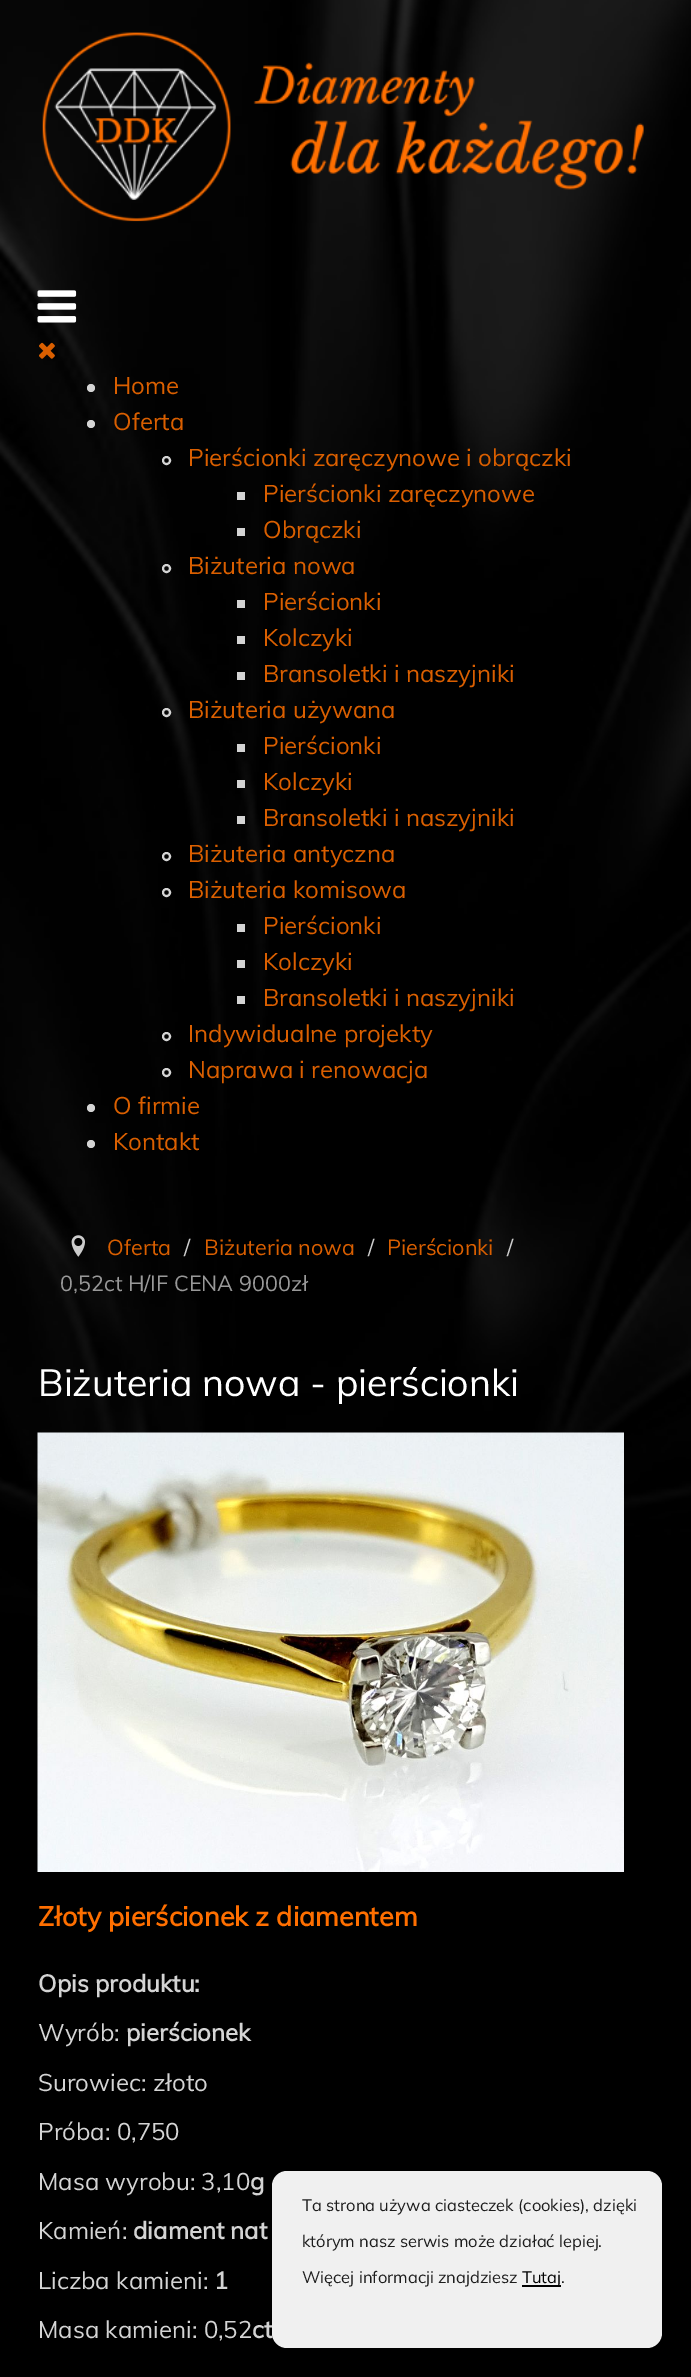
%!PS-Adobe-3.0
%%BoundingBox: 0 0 691 2377
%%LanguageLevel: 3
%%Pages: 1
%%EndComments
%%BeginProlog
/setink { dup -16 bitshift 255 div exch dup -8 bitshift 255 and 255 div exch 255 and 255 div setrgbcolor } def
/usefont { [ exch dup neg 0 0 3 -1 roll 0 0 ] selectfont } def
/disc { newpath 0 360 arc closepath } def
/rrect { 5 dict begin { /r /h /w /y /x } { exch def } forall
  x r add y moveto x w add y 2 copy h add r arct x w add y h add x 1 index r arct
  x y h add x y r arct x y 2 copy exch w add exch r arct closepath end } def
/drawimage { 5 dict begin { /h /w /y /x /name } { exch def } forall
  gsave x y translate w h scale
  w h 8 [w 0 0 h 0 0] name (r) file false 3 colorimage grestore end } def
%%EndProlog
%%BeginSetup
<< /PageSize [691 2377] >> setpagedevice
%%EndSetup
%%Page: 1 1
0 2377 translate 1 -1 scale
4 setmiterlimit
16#000000 setink
0 0 691 2377 rectfill
(img1.raw) 0 0 691 1637 drawimage
(img2.raw) 42 32 602 190 drawimage
(img3.raw) 37 290 40 33 drawimage
(img4.raw) 39 342 16 17 drawimage
16#D4D4D4 setink
91 388 4 disc fill
/Muli-Regular 24 usefont
16#DA5F00 setink
113 394 moveto (Home) show
16#D4D4D4 setink
91 424 4 disc fill
16#DA5F00 setink
113 430 moveto (Oferta) show
16#D4D4D4 setink
2 setlinewidth
166.5 460.5 3.5 disc stroke
16#DA5F00 setink
188 466 moveto (Pierścionki zaręczynowe i obrączki) show
16#D4D4D4 setink
237 492 8 8 rectfill
16#DA5F00 setink
263 502 moveto (Pierścionki zaręczynowe) show
16#D4D4D4 setink
237 528 8 8 rectfill
16#DA5F00 setink
263 538 moveto (Obrączki) show
16#D4D4D4 setink
166.5 568.5 3.5 disc stroke
16#DA5F00 setink
188 574 moveto (Biżuteria nowa) show
16#D4D4D4 setink
237 600 8 8 rectfill
16#DA5F00 setink
263 610 moveto (Pierścionki) show
16#D4D4D4 setink
237 636 8 8 rectfill
16#DA5F00 setink
263 646 moveto (Kolczyki) show
16#D4D4D4 setink
237 672 8 8 rectfill
16#DA5F00 setink
263 682 moveto (Bransoletki i naszyjniki) show
16#D4D4D4 setink
166.5 712.5 3.5 disc stroke
16#DA5F00 setink
188 718 moveto (Biżuteria używana) show
16#D4D4D4 setink
237 744 8 8 rectfill
16#DA5F00 setink
263 754 moveto (Pierścionki) show
16#D4D4D4 setink
237 780 8 8 rectfill
16#DA5F00 setink
263 790 moveto (Kolczyki) show
16#D4D4D4 setink
237 816 8 8 rectfill
16#DA5F00 setink
263 826 moveto (Bransoletki i naszyjniki) show
16#D4D4D4 setink
166.5 856.5 3.5 disc stroke
16#DA5F00 setink
188 862 moveto (Biżuteria antyczna) show
16#D4D4D4 setink
166.5 892.5 3.5 disc stroke
16#DA5F00 setink
188 898 moveto (Biżuteria komisowa) show
16#D4D4D4 setink
237 924 8 8 rectfill
16#DA5F00 setink
263 934 moveto (Pierścionki) show
16#D4D4D4 setink
237 960 8 8 rectfill
16#DA5F00 setink
263 970 moveto (Kolczyki) show
16#D4D4D4 setink
237 996 8 8 rectfill
16#DA5F00 setink
263 1006 moveto (Bransoletki i naszyjniki) show
16#D4D4D4 setink
166.5 1036.5 3.5 disc stroke
16#DA5F00 setink
188 1042 moveto (Indywidualne projekty) show
16#D4D4D4 setink
166.5 1072.5 3.5 disc stroke
16#DA5F00 setink
188 1078 moveto (Naprawa i renowacja) show
16#D4D4D4 setink
91 1108 4 disc fill
16#DA5F00 setink
113 1114 moveto (O firmie) show
16#D4D4D4 setink
91 1144 4 disc fill
16#DA5F00 setink
113 1150 moveto (Kontakt) show
(img5.raw) 71 1235 14 22 drawimage
/Muli-Regular 21.6 usefont
107 1255 moveto (Oferta) show
16#CCCCCC setink
184 1255 moveto (/) show
16#DA5F00 setink
204 1255 moveto (Biżuteria nowa) show
16#CCCCCC setink
368 1255 moveto (/) show
16#DA5F00 setink
387 1255 moveto (Pierścionki) show
16#CCCCCC setink
507 1255 moveto (/) show
16#999999 setink
60 1291 moveto (0,52ct H/IF CENA 9000zł) show
/Muli-Regular 37.5 usefont
16#FFFFFF setink
38 1396 moveto (Biżuteria nowa - pierścionki) show
(img6.raw) 37 1432 587 440 drawimage
/Muli-Bold 27 usefont
16#FF6F00 setink
38 1926 moveto (Złoty pierścionek z diamentem) show
/Muli-Bold 24 usefont
16#D4D4D4 setink
38 1992 moveto (Opis produktu:) show
/Muli-Regular 24 usefont
38 2041 moveto (Wyrób:) show
/Muli-Bold 24 usefont
126 2041 moveto (pierścionek) show
/Muli-Regular 24 usefont
[
    [(Surowiec: złoto) 38 2091]
    [(Próba: 0,750) 38 2140]
    [(Masa wyrobu: 3,10) 38 2190]
] { aload pop moveto show } forall
/Muli-Bold 24 usefont
250 2190 moveto (g) show
/Muli-Regular 24 usefont
38 2239 moveto (Kamień:) show
/Muli-Bold 24 usefont
133 2239 moveto (diament nat) show
/Muli-Regular 24 usefont
38 2289 moveto (Liczba kamieni:) show
/Muli-Bold 24 usefont
214 2289 moveto (1) show
/Muli-Regular 24 usefont
38 2338 moveto (Masa kamieni: 0,52) show
/Muli-Bold 24 usefont
252 2338 moveto (ct) show
16#F0F0F0 setink
272 2171 390 177 15 rrect fill
/Muli-Regular 16.5 usefont
16#1D1D1D setink
[
    [(Ta strona używa ciasteczek \(cookies\), dzięki) 302 2211]
    [(którym nasz serwis może działać lepiej.) 302 2247]
    [(Więcej informacji znajdziesz) 302 2283]
] { aload pop moveto show } forall
16#000000 setink
522 2285 39 2 rectfill
522 2283 moveto (Tutaj) show
16#1D1D1D setink
561 2283 moveto (.) show
showpage
%%EOF
